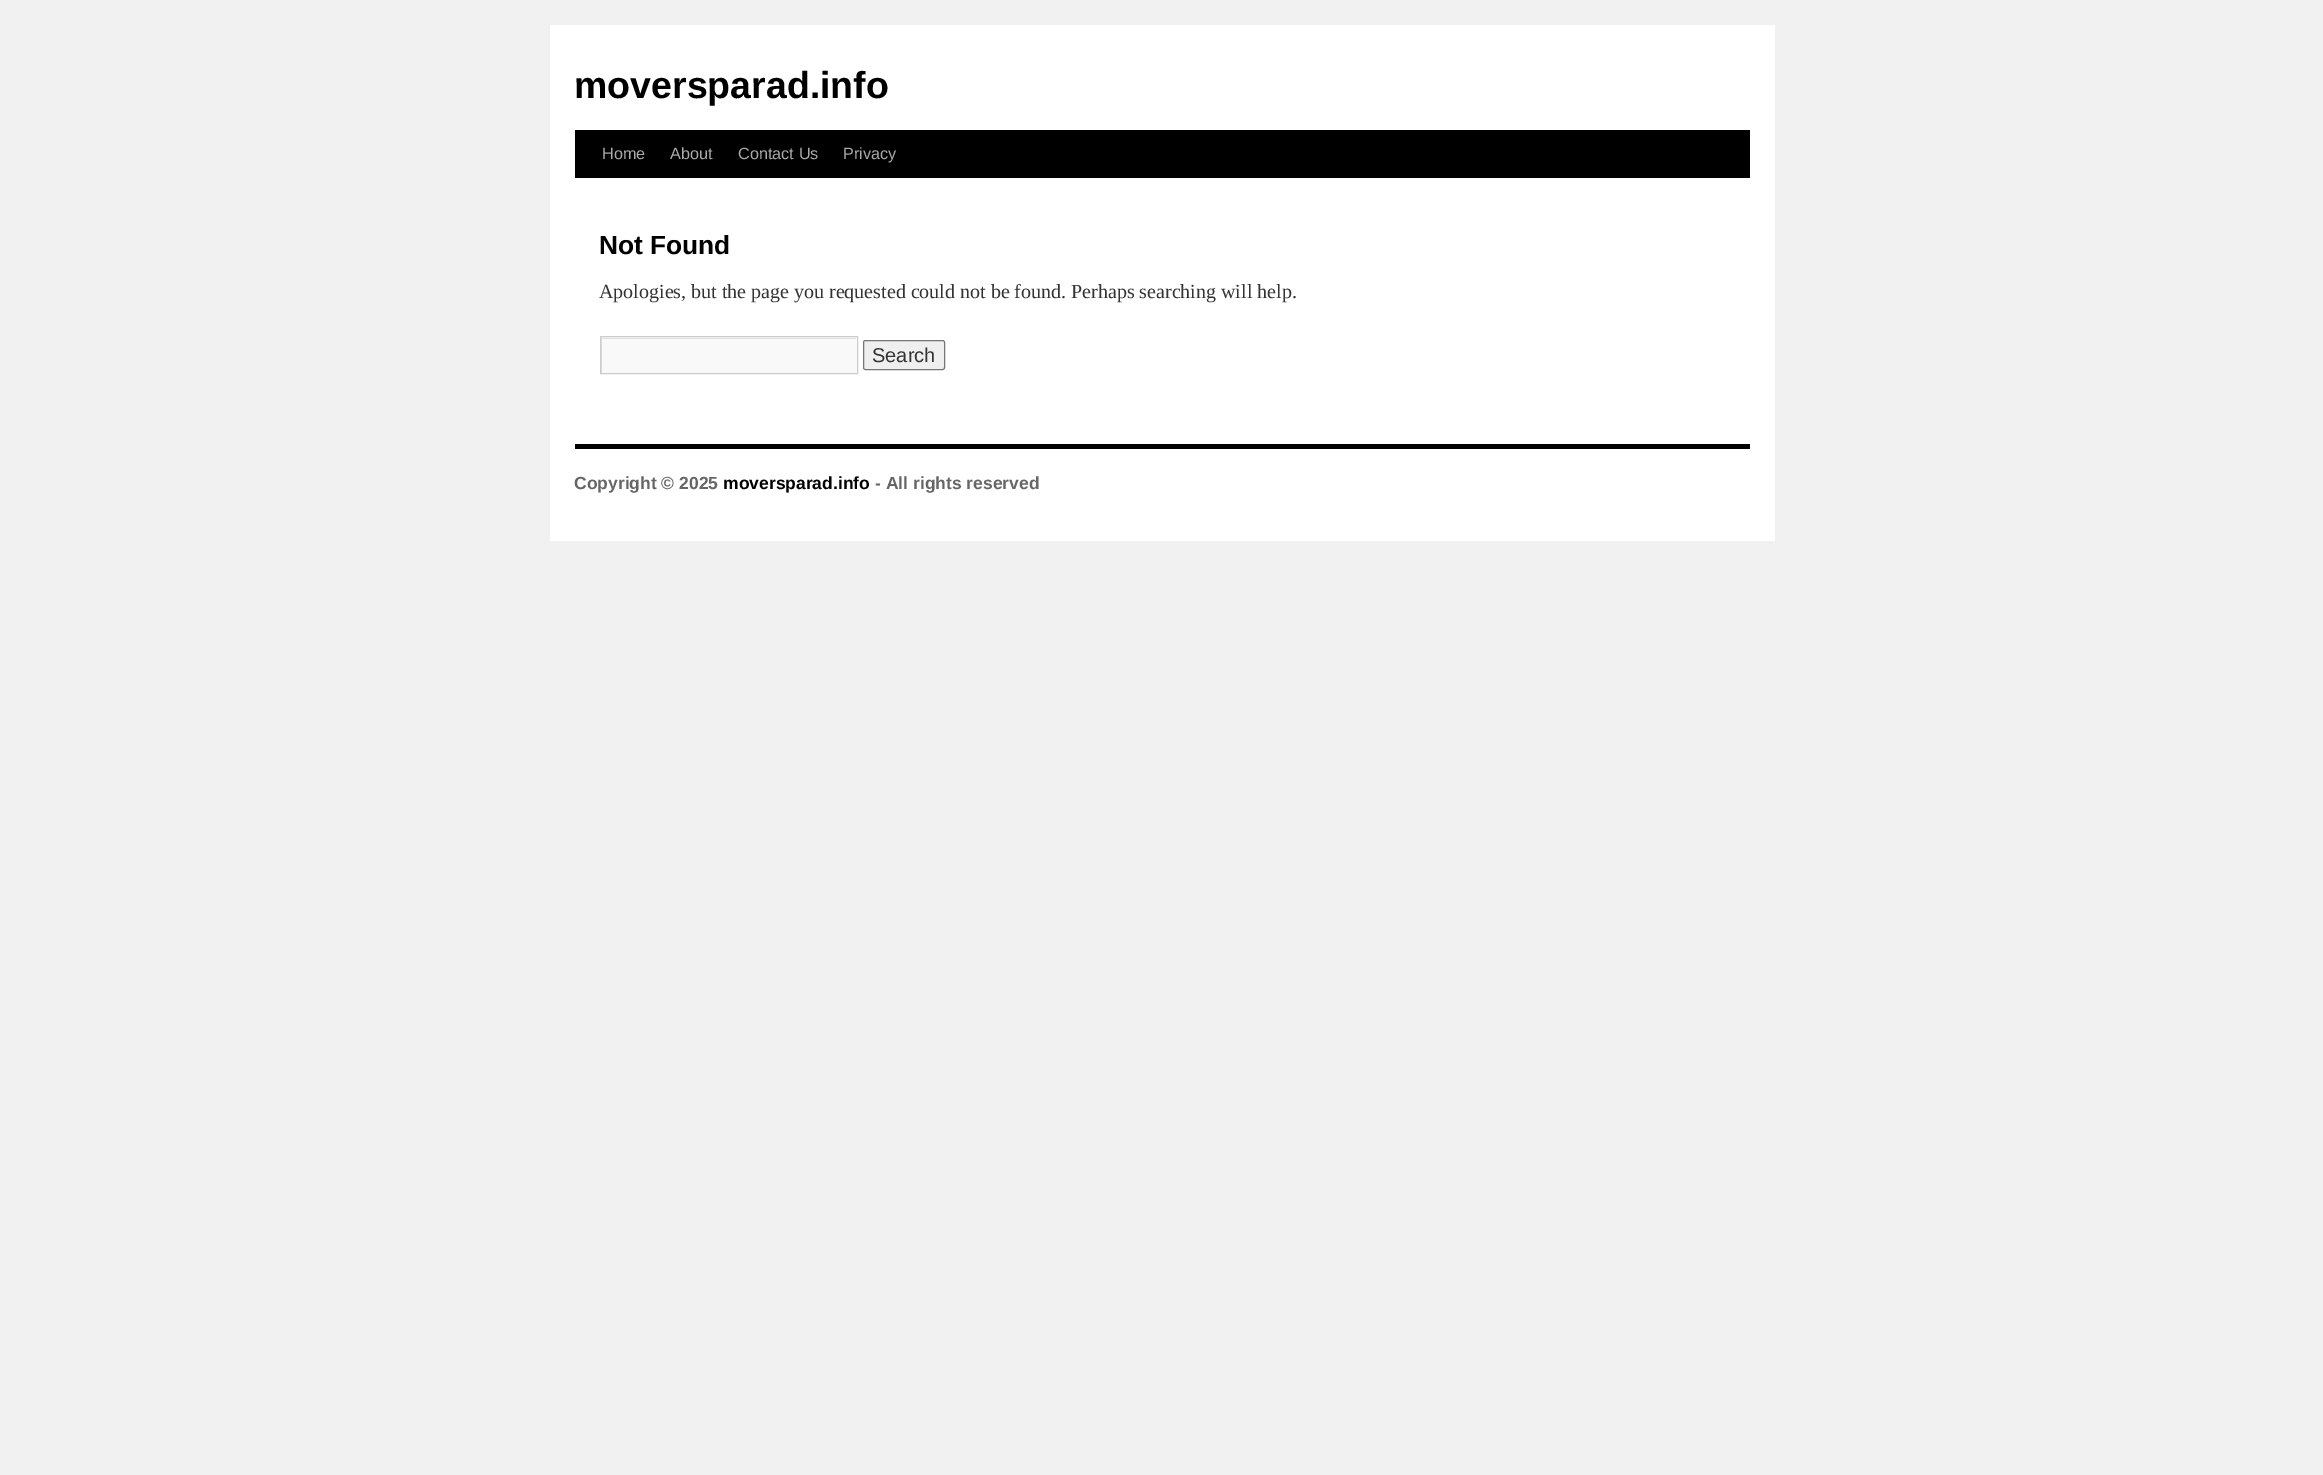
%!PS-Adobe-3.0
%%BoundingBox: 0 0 2323 1475
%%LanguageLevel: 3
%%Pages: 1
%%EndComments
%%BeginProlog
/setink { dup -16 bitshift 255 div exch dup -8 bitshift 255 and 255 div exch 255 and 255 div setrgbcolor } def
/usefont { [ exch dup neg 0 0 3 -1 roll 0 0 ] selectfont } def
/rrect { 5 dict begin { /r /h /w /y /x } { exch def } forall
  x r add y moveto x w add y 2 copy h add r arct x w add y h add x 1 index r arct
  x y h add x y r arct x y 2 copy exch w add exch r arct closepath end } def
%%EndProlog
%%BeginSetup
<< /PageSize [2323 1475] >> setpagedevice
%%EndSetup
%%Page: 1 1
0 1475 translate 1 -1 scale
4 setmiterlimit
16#F1F1F1 setink
0 0 2323 1475 rectfill
16#FFFFFF setink
550 25 1225 516 rectfill
/LiberationSans-Bold 37.5 usefont
16#000000 setink
574 98 moveto (moversparad.info) show
575 130 1175 48 rectfill
/LiberationSans-Regular 16.25 usefont
16#AAAAAA setink
[
    [(Home) 602 159]
    [(About) 670 159]
    [(Contact Us) 738 159]
    [(Privacy) 843 159]
] { aload pop moveto show } forall
/LiberationSans-Bold 26.25 usefont
16#000000 setink
599 254 moveto (Not Found) show
/LiberationSerif-Regular 20 usefont
16#333333 setink
599 298 moveto (Apologies, but the page you requested could not be found. Perhaps searching will help.) show
16#F9F9F9 setink
601 337 256 36 rectfill
gsave
601 338 255 35 rectclip
16#E0E0E0 setink
478 214 moveto 980 214 lineto 980 496 lineto 478 496 lineto closepath 602 339 moveto 858 339 lineto 858 374 lineto 602 374 lineto closepath eofill
grestore
16#CCCCCC setink
600.5 336.5 257 37 rectstroke
16#EFEFEF setink
863.5 340.5 81 29 2 rrect gsave fill grestore
16#767676 setink
stroke
/LiberationSans-Regular 20 usefont
16#333333 setink
872 362 moveto (Search) show
16#000000 setink
575 444 1175 5 rectfill
/LiberationSans-Bold 17.5 usefont
16#666666 setink
574 489 moveto (Copyright © 2025) show
16#000000 setink
723 489 moveto (moversparad.info) show
16#666666 setink
875 489 moveto (- All rights reserved) show
showpage
%%EOF
